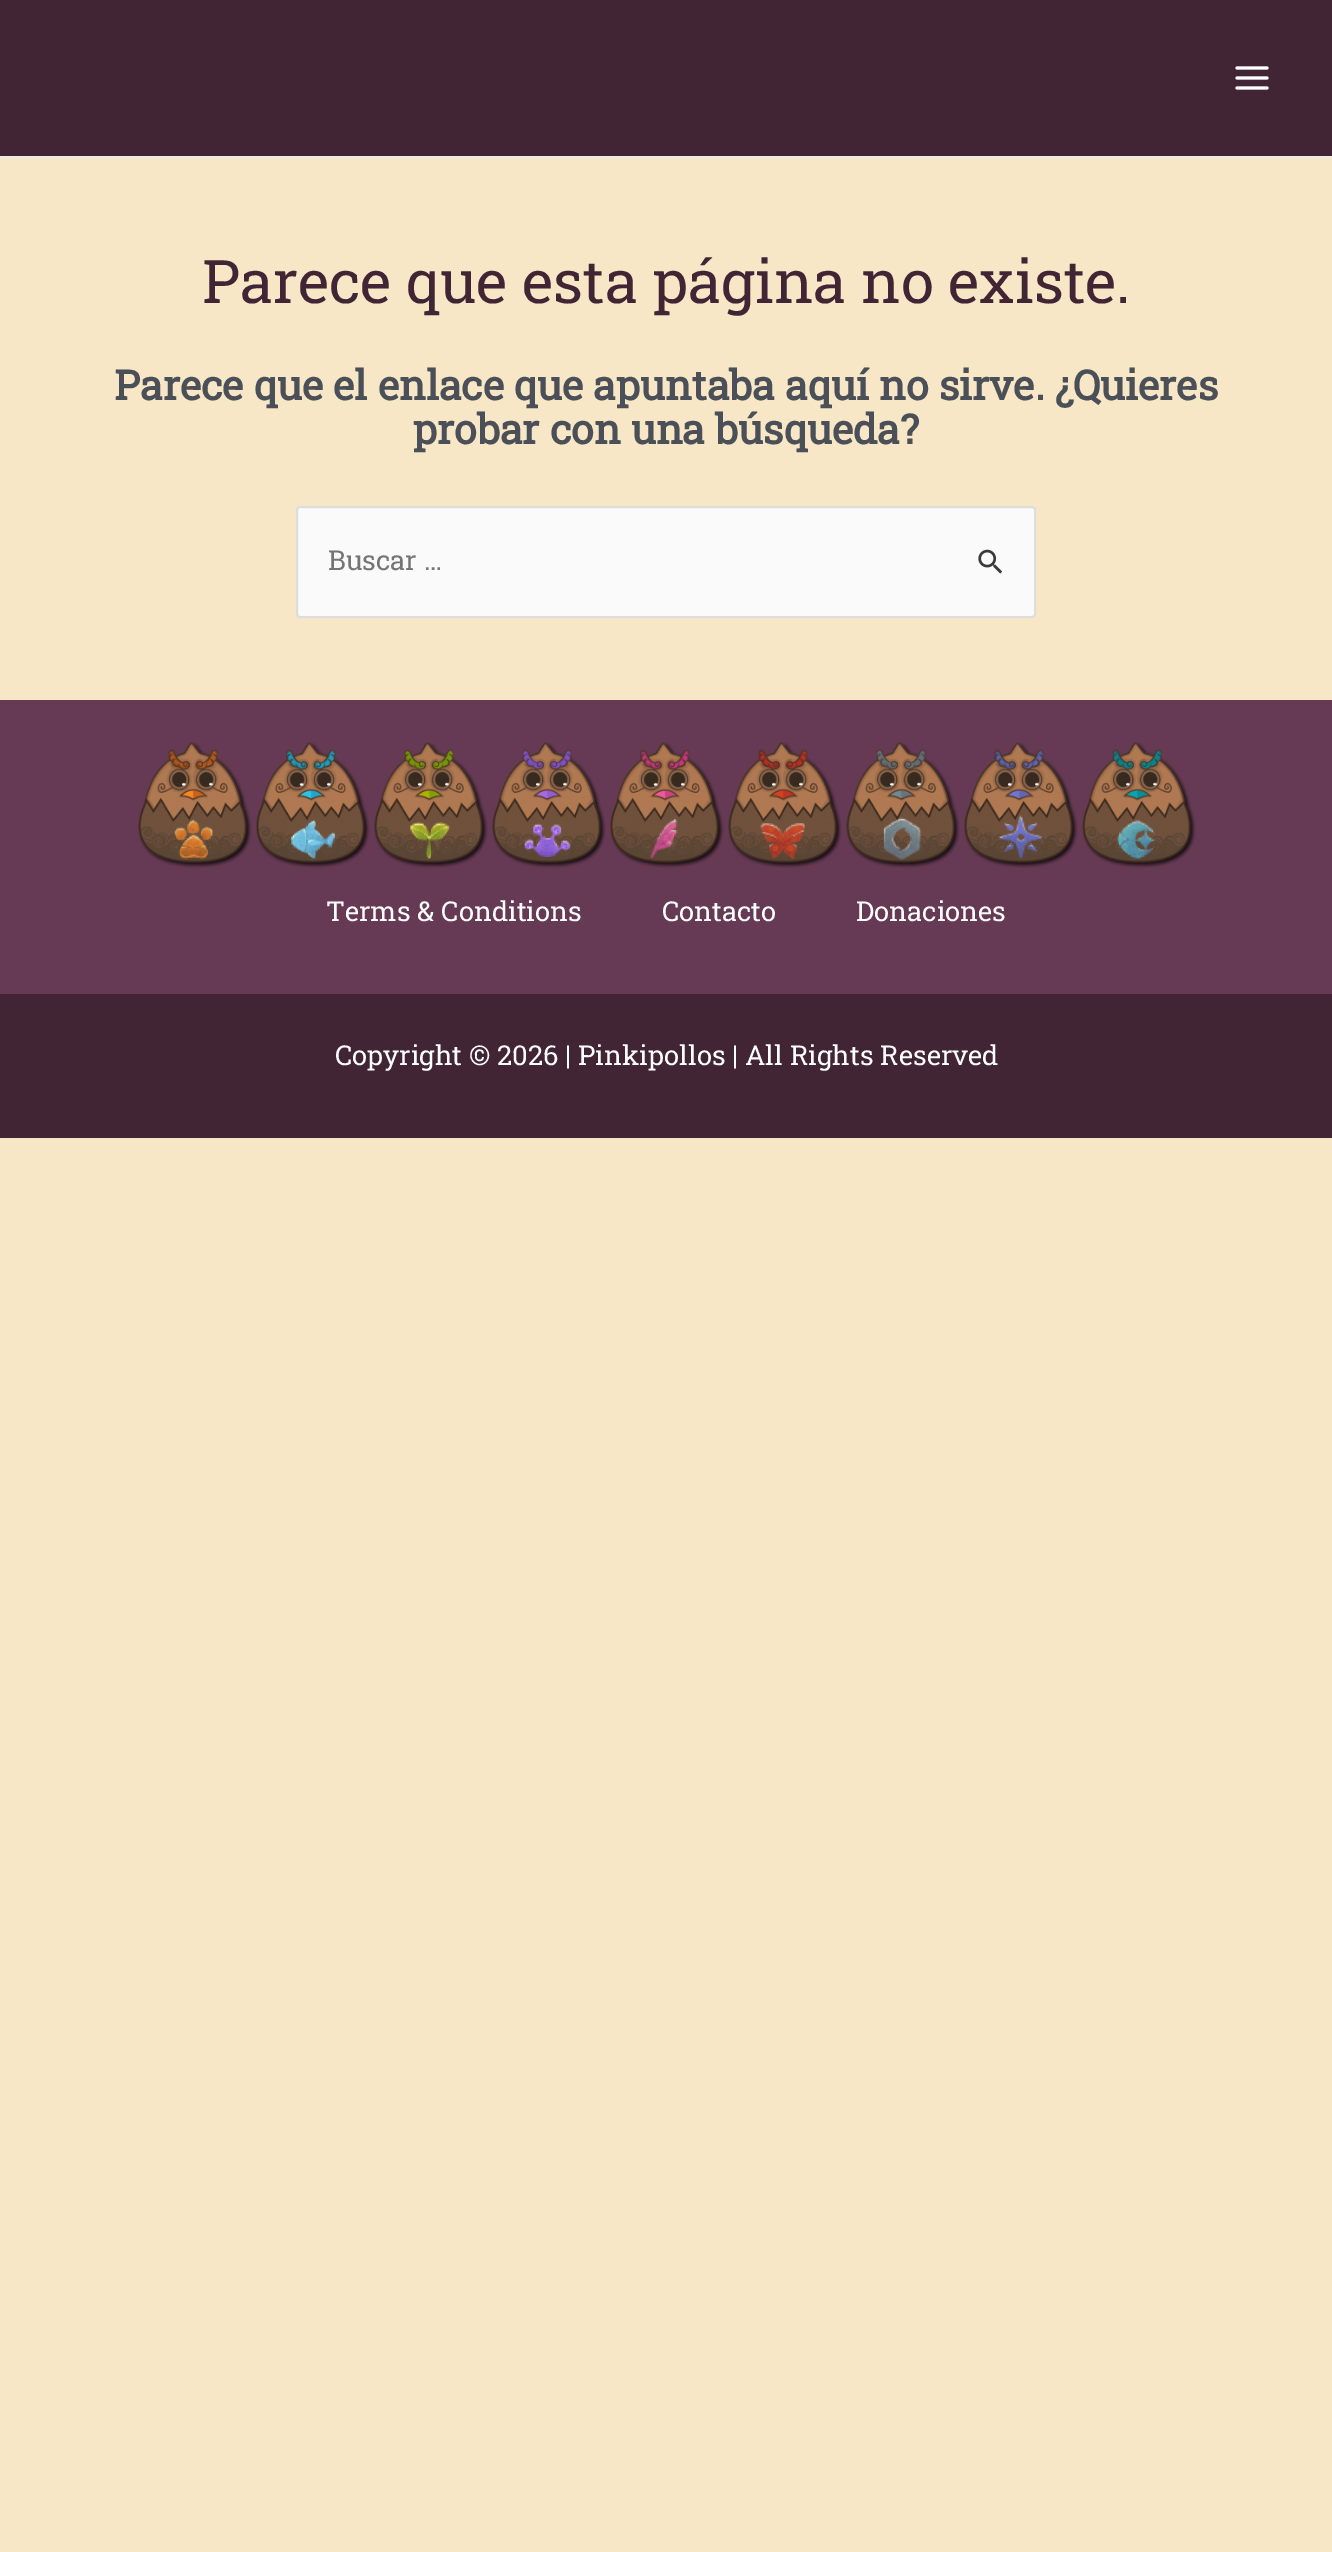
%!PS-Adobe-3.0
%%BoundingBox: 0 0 1332 2552
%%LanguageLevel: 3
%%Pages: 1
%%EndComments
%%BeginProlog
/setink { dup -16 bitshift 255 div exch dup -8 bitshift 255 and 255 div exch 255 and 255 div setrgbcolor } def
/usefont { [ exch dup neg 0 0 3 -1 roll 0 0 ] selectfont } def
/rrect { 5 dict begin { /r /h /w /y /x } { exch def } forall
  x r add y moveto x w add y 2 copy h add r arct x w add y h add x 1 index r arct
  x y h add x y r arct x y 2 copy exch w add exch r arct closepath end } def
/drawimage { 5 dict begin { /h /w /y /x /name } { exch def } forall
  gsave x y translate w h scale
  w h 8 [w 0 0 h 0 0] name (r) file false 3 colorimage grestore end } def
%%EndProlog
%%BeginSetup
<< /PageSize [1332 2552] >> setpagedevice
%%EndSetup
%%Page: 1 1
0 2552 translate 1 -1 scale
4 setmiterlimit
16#F7E7C6 setink
0 0 1332 2552 rectfill
16#412534 setink
0 0 1332 156 rectfill
16#EAEAEA setink
0 156 1332 2 rectfill
(img1.raw) 1235 66 34 24 drawimage
/RobotoSlab-Regular 60 usefont
16#412534 setink
202 303 moveto (Parece que esta página no existe.) show
/RobotoSlab-Bold 41.05 usefont
16#4B4F58 setink
114 400 moveto (Parece que el enlace que apuntaba aquí no sirve. ¿Quieres) show
413 444 moveto (probar con una búsqueda?) show
16#FAFAFA setink
297 507 738 110 3 rrect gsave fill grestore
16#DDDDDD setink
2 setlinewidth
stroke
/RobotoSlab-Regular 27.4 usefont
16#757575 setink
328 570 moveto (Buscar …) show
(img2.raw) 978 549 24 25 drawimage
16#663A54 setink
0 700 1332 294 rectfill
(img3.raw) 138 742 114 126 drawimage
(img4.raw) 256 742 114 126 drawimage
(img5.raw) 374 742 114 126 drawimage
(img6.raw) 492 742 114 126 drawimage
(img7.raw) 610 742 114 126 drawimage
(img8.raw) 728 742 114 126 drawimage
(img9.raw) 846 742 114 126 drawimage
(img10.raw) 964 742 114 126 drawimage
(img11.raw) 1082 742 114 126 drawimage
16#FFFFFF setink
[
    [(Terms & Conditions) 326 921]
    [(Contacto) 662 921]
    [(Donaciones) 856 921]
] { aload pop moveto show } forall
16#412534 setink
0 994 1332 144 rectfill
16#FFFFFF setink
335 1065 moveto (Copyright © 2026 | Pinkipollos | All Rights Reserved) show
showpage
%%EOF
